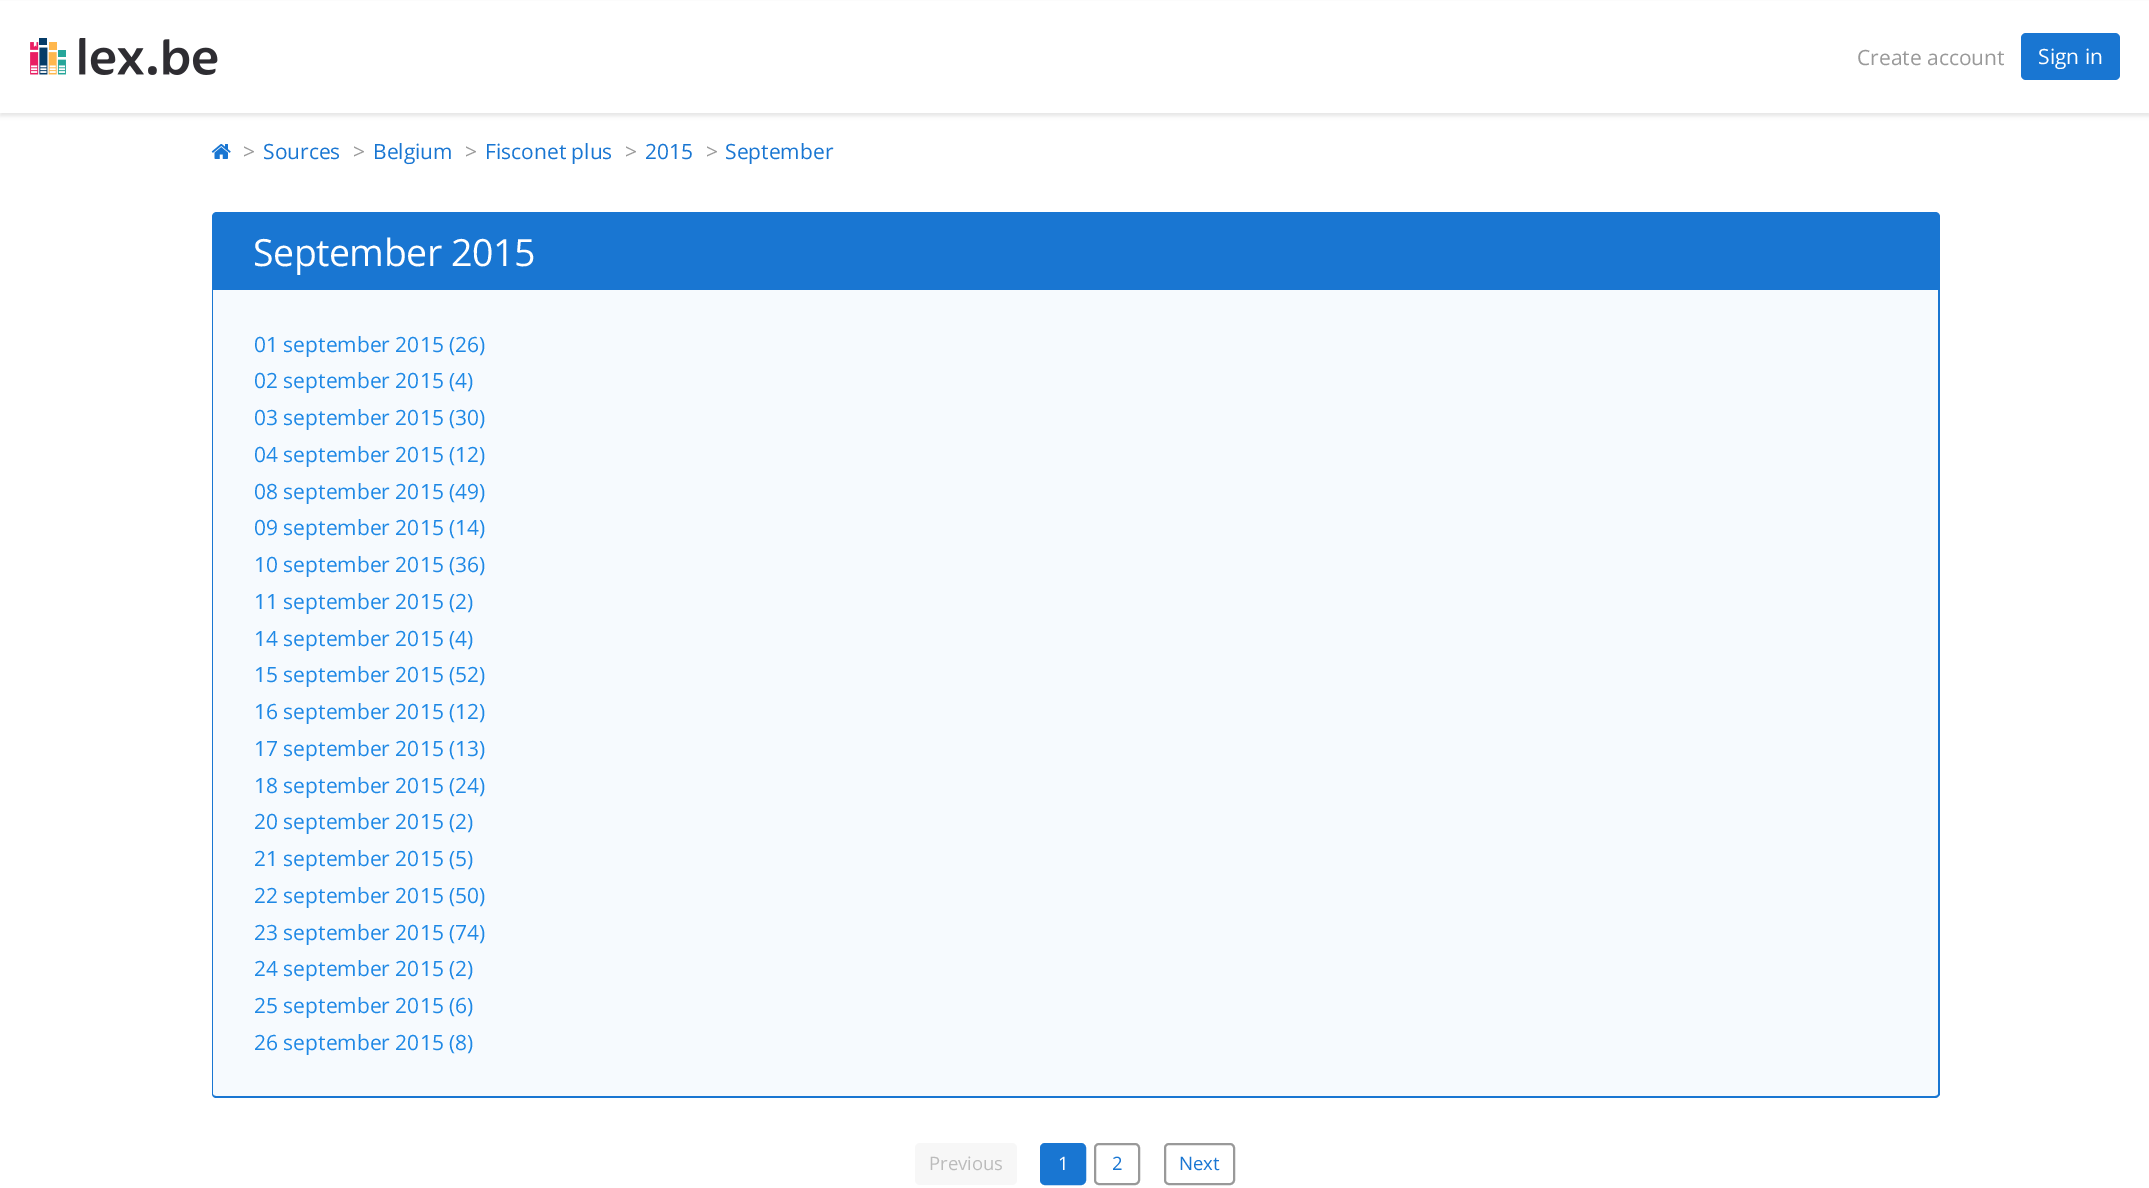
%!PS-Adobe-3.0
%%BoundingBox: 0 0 2149 1188
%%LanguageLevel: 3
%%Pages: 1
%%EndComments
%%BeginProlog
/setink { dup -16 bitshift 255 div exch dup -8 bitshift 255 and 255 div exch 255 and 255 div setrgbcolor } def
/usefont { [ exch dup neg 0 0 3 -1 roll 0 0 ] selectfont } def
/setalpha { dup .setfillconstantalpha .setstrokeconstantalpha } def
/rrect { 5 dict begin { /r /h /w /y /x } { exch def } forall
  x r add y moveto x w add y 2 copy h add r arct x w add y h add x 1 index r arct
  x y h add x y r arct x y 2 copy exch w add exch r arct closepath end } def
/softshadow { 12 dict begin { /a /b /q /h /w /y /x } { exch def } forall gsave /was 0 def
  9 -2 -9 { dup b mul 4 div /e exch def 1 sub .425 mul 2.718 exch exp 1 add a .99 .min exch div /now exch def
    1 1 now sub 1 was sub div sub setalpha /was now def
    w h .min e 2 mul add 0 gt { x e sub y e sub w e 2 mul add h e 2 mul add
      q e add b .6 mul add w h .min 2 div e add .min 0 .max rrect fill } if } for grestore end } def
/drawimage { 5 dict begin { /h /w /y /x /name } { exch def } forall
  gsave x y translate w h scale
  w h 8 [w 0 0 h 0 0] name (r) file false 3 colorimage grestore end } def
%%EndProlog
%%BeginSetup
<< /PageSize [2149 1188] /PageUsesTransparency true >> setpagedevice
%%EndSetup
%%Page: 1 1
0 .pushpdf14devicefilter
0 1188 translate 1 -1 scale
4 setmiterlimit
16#FFFFFF setink
0 0 2149 1188 rectfill
16#0A0A0A setink
0 3 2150 113 0 2 0.1 softshadow
16#FFFFFF setink
0 1 2149 112 rectfill
(img1.raw) 30 38 188 37 drawimage
/OpenSans-Regular 21 usefont
16#999999 setink
1857 65 moveto (Create account) show
16#1976D2 setink
2021 33 99 47 5 rrect fill
16#FFFFFF setink
2038 64 moveto (Sign in) show
(img2.raw) 211 144 20 15 drawimage
16#999999 setink
243 159 moveto (>) show
16#1976D2 setink
263 159 moveto (Sources) show
16#999999 setink
353 159 moveto (>) show
16#1976D2 setink
373 159 moveto (Belgium) show
16#999999 setink
465 159 moveto (>) show
16#1976D2 setink
485 159 moveto (Fisconet plus) show
16#999999 setink
625 159 moveto (>) show
16#1976D2 setink
645 159 moveto (2015) show
16#999999 setink
706 159 moveto (>) show
16#1976D2 setink
725 159 moveto (September) show
16#F6FAFE setink
212 212 1728 886 5 rrect fill
16#1976D2 setink
217 212 moveto 1935 212 lineto 1938 212 1940 214 1940 217 curveto 1940 290 lineto 212 290 lineto 212 217 lineto 212 214 214 212 217 212 curveto closepath fill
/OpenSans-Regular 37.5 usefont
16#FFFFFF setink
253 266 moveto -0.5 0 (September 2015) ashow
16#1976D2 setink
212 290 moveto 1940 290 lineto 1940 1094 lineto 1940 1096 1937 1098 1935 1098 curveto 216 1098 lineto 214 1098 212 1096 212 1094 curveto closepath 213 290 moveto 1938 290 lineto 1938 1094 lineto 1938 1095 1937 1096 1935 1096 curveto 216 1096 lineto 214 1096 213 1095 213 1094 curveto closepath eofill
/OpenSans-Regular 21 usefont
16#1E88E5 setink
[
    [(01 september 2015 \(26\)) 254 352]
    [(02 september 2015 \(4\)) 254 388]
    [(03 september 2015 \(30\)) 254 425]
    [(04 september 2015 \(12\)) 254 462]
    [(08 september 2015 \(49\)) 254 499]
    [(09 september 2015 \(14\)) 254 535]
    [(10 september 2015 \(36\)) 254 572]
    [(11 september 2015 \(2\)) 254 609]
    [(14 september 2015 \(4\)) 254 646]
    [(15 september 2015 \(52\)) 254 682]
    [(16 september 2015 \(12\)) 254 719]
    [(17 september 2015 \(13\)) 254 756]
    [(18 september 2015 \(24\)) 254 793]
    [(20 september 2015 \(2\)) 254 829]
    [(21 september 2015 \(5\)) 254 866]
    [(22 september 2015 \(50\)) 254 903]
    [(23 september 2015 \(74\)) 254 940]
    [(24 september 2015 \(2\)) 254 976]
    [(25 september 2015 \(6\)) 254 1013]
    [(26 september 2015 \(8\)) 254 1050]
] { aload pop moveto show } forall
16#F7F7F7 setink
915 1143 102 42 5 rrect fill
/OpenSans-Regular 18.5 usefont
16#BBBBBB setink
929 1170 moveto (Previous) show
16#1976D2 setink
1041 1144 44 40 4 rrect gsave fill grestore
2 setlinewidth
stroke
16#FFFFFF setink
1058 1170 moveto (1) show
16#999999 setink
1095 1144 44 40 4 rrect stroke
16#1976D2 setink
1112 1170 moveto (2) show
16#999999 setink
1165 1144 69 40 4 rrect stroke
16#1976D2 setink
1179 1170 moveto (Next) show
.poppdf14devicefilter showpage
%%EOF
